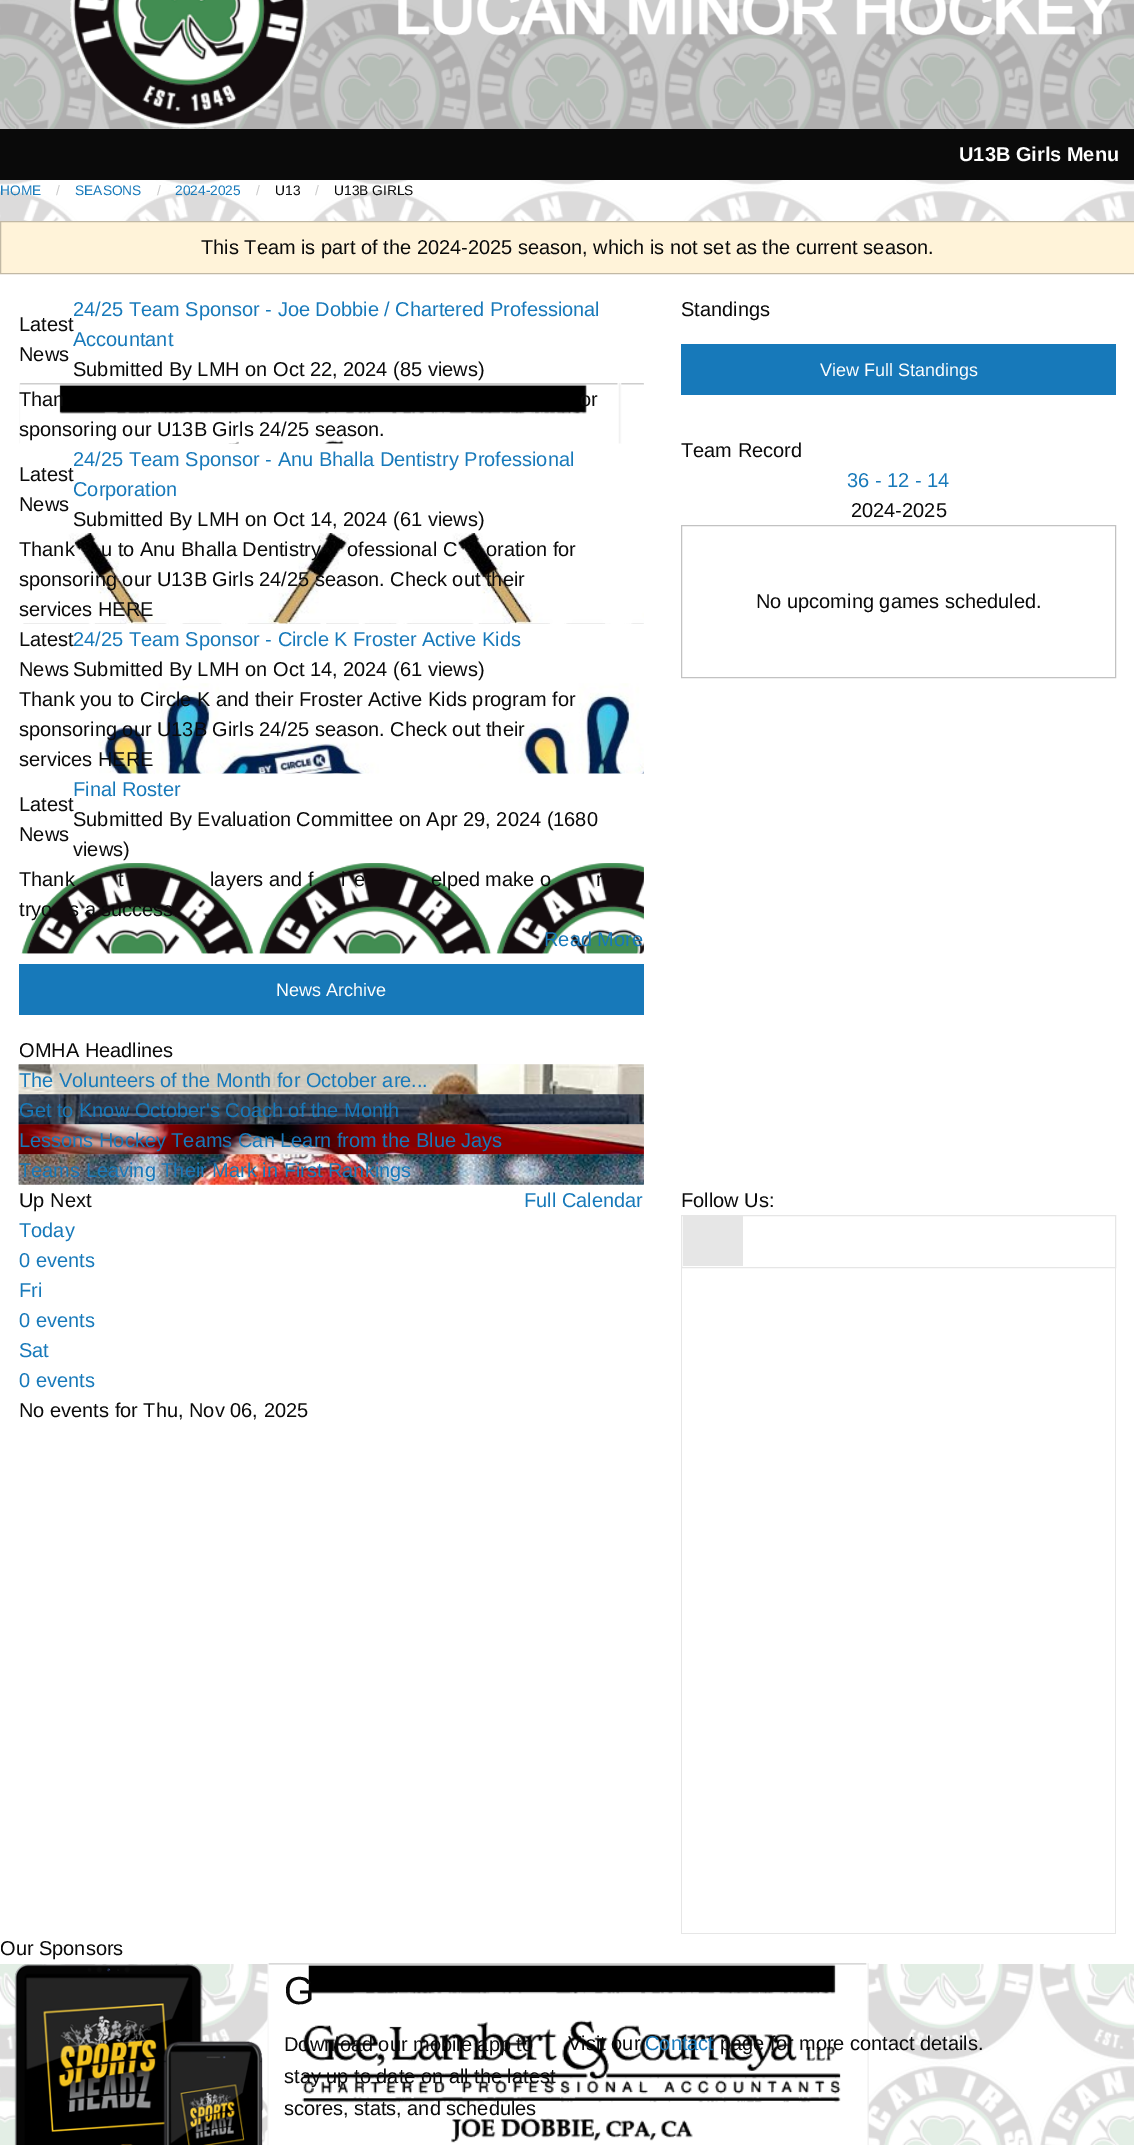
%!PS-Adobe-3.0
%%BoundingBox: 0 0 1134 2145
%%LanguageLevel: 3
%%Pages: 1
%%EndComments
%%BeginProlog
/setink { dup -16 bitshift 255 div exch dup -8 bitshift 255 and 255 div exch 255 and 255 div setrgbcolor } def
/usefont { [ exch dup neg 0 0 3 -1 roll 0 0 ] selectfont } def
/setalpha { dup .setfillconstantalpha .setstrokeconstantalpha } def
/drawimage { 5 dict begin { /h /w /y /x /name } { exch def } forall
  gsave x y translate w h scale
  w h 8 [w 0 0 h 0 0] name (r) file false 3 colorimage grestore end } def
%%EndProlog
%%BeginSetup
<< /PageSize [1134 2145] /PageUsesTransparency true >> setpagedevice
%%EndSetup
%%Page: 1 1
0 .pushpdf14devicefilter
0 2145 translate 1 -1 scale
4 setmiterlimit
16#FFFFFF setink
0 0 1134 2145 rectfill
(img1.raw) 0 0 1134 2145 drawimage
0.2 setalpha
16#000000 setink
0 0 1134 129 rectfill
1 setalpha
(img2.raw) 70 0 238 129 drawimage
(img3.raw) 398 0 714 36 drawimage
16#0A0A0A setink
0 129 1134 51 rectfill
/LiberationSans-Bold 20 usefont
16#FEFEFE setink
959 161 moveto (U13B Girls Menu) show
/LiberationSans-Regular 13.75 usefont
16#1779BA setink
0 195 moveto (HOME) show
16#CACACA setink
56 195 moveto (/) show
16#1779BA setink
75 195 moveto (SEASONS) show
16#CACACA setink
157 195 moveto (/) show
16#1779BA setink
175 195 moveto (2024-2025) show
16#CACACA setink
256 195 moveto (/) show
16#0A0A0A setink
275 195 moveto (U13) show
16#CACACA setink
315 195 moveto (/) show
16#0A0A0A setink
334 195 moveto (U13B GIRLS) show
16#FFFFFF setink
0 274 1134 1690 rectfill
16#FFF3D9 setink
0.5 221.5 moveto 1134.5 221.5 lineto 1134.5 273.5 lineto 0.5 273.5 lineto closepath gsave fill grestore
16#C2B9A5 setink
stroke
/LiberationSans-Regular 20 usefont
16#0A0A0A setink
[
    [(This Team is part of the 2024-2025 season, which is not set as the current season.) 201 254]
    [(Latest) 19 331]
    [(News) 19 361]
] { aload pop moveto show } forall
16#1779BA setink
73 316 moveto (24/25 Team Sponsor - Joe Dobbie / Chartered Professional) show
73 346 moveto (Accountant) show
16#0A0A0A setink
73 376 moveto (Submitted By LMH on Oct 22, 2024 \(85 views\)) show
(img4.raw) 19 383 625 61 drawimage
(img5.raw) 20 383 624 61 drawimage
[
    [(Than) 19 406]
    [(or) 580 406]
    [(sponsoring our U13B Girls 24/25 season.) 19 436]
    [(Latest) 19 481]
    [(News) 19 511]
] { aload pop moveto show } forall
16#1779BA setink
73 466 moveto (24/25 Team Sponsor - Anu Bhalla Dentistry Professional) show
73 496 moveto (Corporation) show
16#0A0A0A setink
73 526 moveto (Submitted By LMH on Oct 14, 2024 \(61 views\)) show
(img6.raw) 23 533 621 91 drawimage
(img7.raw) 23 533 621 91 drawimage
[
    [(Thank) 19 556]
    [(u to Anu Bhalla Dentistry) 101 556]
    [(ofessional C) 347 556]
    [(oration for) 486 556]
    [(sponsoring our U13B Girls 24/25 season. Check out their) 19 586]
    [(services HERE) 19 616]
    [(Latest) 19 646]
    [(News) 19 676]
] { aload pop moveto show } forall
16#1779BA setink
73 646 moveto (24/25 Team Sponsor - Circle K Froster Active Kids) show
16#0A0A0A setink
73 676 moveto (Submitted By LMH on Oct 14, 2024 \(61 views\)) show
(img8.raw) 98 683 546 91 drawimage
(img9.raw) 117 771 527 3 drawimage
[
    [(Thank you to Circle K and their Froster Active Kids program for) 19 706]
    [(sponsoring our U13B Girls 24/25 season. Check out their) 19 736]
    [(services HERE) 19 766]
    [(Latest) 19 811]
    [(News) 19 841]
] { aload pop moveto show } forall
16#1779BA setink
73 796 moveto (Final Roster) show
16#0A0A0A setink
73 826 moveto (Submitted By Evaluation Committee on Apr 29, 2024 \(1680) show
73 856 moveto (views\)) show
(img10.raw) 21 863 623 91 drawimage
(img11.raw) 21 863 623 91 drawimage
[
    [(Thank) 19 886]
    [(t) 118 886]
    [(layers and f) 210 886]
    [(i) 341 886]
    [(e) 354 886]
    [(elped make o) 431 886]
    [(r) 596 886]
    [(tryo) 19 916]
    [(s a success) 69 916]
] { aload pop moveto show } forall
16#1779BA setink
544 946 moveto (Read More) show
19 964 625 51 rectfill
/LiberationSans-Regular 18 usefont
16#FEFEFE setink
276 996 moveto (News Archive) show
/LiberationSans-Regular 20 usefont
16#0A0A0A setink
19 1057 moveto (OMHA Headlines) show
(img12.raw) 18 1064 626 31 drawimage
(img13.raw) 18 1064 626 31 drawimage
16#1779BA setink
19 1087 moveto (The Volunteers of the Month for October are...) show
(img14.raw) 18 1094 626 31 drawimage
(img15.raw) 18 1094 626 31 drawimage
19 1117 moveto (Get to Know October's Coach of the Month) show
(img16.raw) 18 1124 626 31 drawimage
(img17.raw) 18 1124 626 31 drawimage
19 1147 moveto (Lessons Hockey Teams Can Learn from the Blue Jays) show
(img18.raw) 18 1154 626 31 drawimage
(img19.raw) 18 1154 626 31 drawimage
19 1177 moveto (Teams Leaving Their Mark in First Rankings) show
16#0A0A0A setink
681 316 moveto (Standings) show
16#1779BA setink
681 344 435 51 rectfill
/LiberationSans-Regular 18 usefont
16#FEFEFE setink
820 376 moveto (View Full Standings) show
/LiberationSans-Regular 20 usefont
16#0A0A0A setink
681 457 moveto (Team Record) show
16#1779BA setink
847 487 moveto (36 - 12 - 14) show
16#0A0A0A setink
851 517 moveto (2024-2025) show
16#C2C2C2 setink
681.5 525.5 434 152 rectstroke
16#0A0A0A setink
756 608 moveto (No upcoming games scheduled.) show
19 1207 moveto (Up Next) show
16#1779BA setink
[
    [(Full Calendar) 524 1207]
    [(Today) 19 1237]
    [(0 events) 19 1267]
    [(Fri) 19 1297]
    [(0 events) 19 1327]
    [(Sat) 19 1357]
    [(0 events) 19 1387]
] { aload pop moveto show } forall
16#0A0A0A setink
19 1417 moveto (No events for Thu, Nov 06, 2025) show
681 1207 moveto (Follow Us:) show
16#E6E6E6 setink
681.5 1215.5 434 52 rectstroke
[
    [683 1216 60 50 16#E6E6E6]
    [1115 1268 1 666 16#E6E6E6]
    [681 1933 435 1 16#E6E6E6]
    [681 1268 1 666 16#E6E6E6]
] { aload pop setink rectfill } forall
16#0A0A0A setink
0 1955 moveto (Our Sponsors) show
(img21.raw) 357 1963 421 1 drawimage
(img20.raw) 267 1963 602 182 drawimage
(img22.raw) 14 1963 249 182 drawimage
/LiberationSans-Regular 39 usefont
284 2004 moveto (G) show
/LiberationSans-Regular 20 usefont
[
    [(Download our mobile app to) 284 2051]
    [(stay up to date on all the latest) 284 2083]
    [(scores, stats, and schedules) 284 2115]
    [(Visit our) 568 2050]
] { aload pop moveto show } forall
16#1779BA setink
645 2050 moveto (Contact) show
16#0A0A0A setink
720 2050 moveto (page for more contact details.) show
.poppdf14devicefilter showpage
%%EOF
